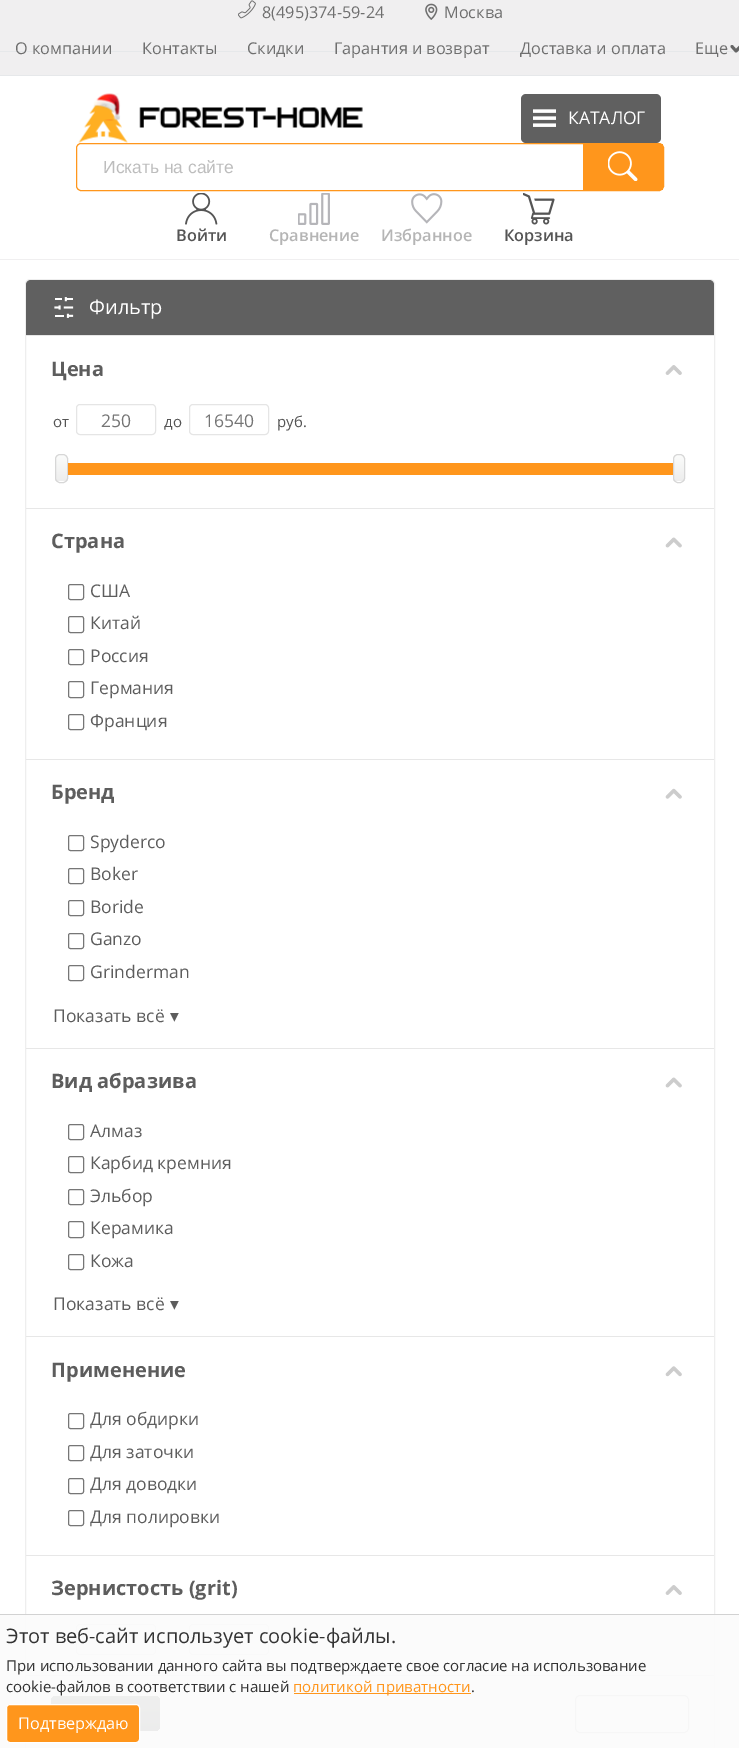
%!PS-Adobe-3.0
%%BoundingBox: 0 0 739 1748
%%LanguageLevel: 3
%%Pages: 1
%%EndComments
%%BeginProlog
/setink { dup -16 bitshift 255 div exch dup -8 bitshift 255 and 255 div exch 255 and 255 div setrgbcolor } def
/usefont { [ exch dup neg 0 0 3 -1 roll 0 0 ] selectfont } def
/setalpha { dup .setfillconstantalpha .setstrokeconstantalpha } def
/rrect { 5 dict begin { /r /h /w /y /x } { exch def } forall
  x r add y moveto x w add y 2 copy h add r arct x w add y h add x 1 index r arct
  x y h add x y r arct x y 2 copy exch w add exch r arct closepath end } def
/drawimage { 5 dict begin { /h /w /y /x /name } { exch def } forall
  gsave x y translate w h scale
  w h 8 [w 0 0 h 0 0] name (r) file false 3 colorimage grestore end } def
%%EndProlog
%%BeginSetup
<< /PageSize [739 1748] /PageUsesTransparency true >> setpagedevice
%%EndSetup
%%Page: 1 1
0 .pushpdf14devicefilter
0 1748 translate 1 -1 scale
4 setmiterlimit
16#FFFFFF setink
0 0 739 1748 rectfill
16#F0EFF0 setink
0 0 739 75 rectfill
16#E6E8EA setink
0 51 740 1 0.5 rrect fill
0 75 739 1 rectfill
(img1.raw) 238 0 18 19 drawimage
/OpenSans-Regular 16.25 usefont
16#6F6F6F setink
262 18 moveto (8\(495\)374-59-24) show
(img2.raw) 425 3 13 17 drawimage
[
    [(Москва) 444 18]
    [(О компании) 15 54]
    [(Контакты) 142 54]
    [(Скидки) 247 54]
    [(Гарантия и возврат) 334 54]
    [(Доставка и оплата) 520 54]
    [(Еще) 695 54]
] { aload pop moveto show } forall
16#656565 setink
2.9 setlinewidth
1 setlinecap
1 setlinejoin
732 46.5 moveto 736 51 lineto 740.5 46.5 lineto stroke
16#F0EFF0 setink
0 259 739 1 rectfill
(img3.raw) 78 93 285 50 drawimage
16#606060 setink
521 94 140 49 5 rrect fill
(img4.raw) 533 109 23 18 drawimage
/OpenSans-Regular 17.5 usefont
16#FFFFFF setink
568 124 moveto (КАТАЛОГ) show
16#FF961C setink
1 setlinewidth
0 setlinecap
0 setlinejoin
76.5 143.5 587 47 4.5 rrect stroke
/LiberationSans-Regular 17.5 usefont
16#BDBDBD setink
103 173 moveto (Искать на сайте) show
16#FF961C setink
583 144 80 46 rectfill
(img5.raw) 608 151 30 30 drawimage
(img6.raw) 185 193 33 32 drawimage
/OpenSans-SemiBold 16.25 usefont
16#555555 setink
176 241 moveto (Войти) show
(img7.raw) 298 193 32 32 drawimage
16#B5B5B5 setink
269 241 moveto (Сравнение) show
(img8.raw) 411 193 32 31 drawimage
381 241 moveto (Избранное) show
(img9.raw) 523 193 32 32 drawimage
16#555555 setink
504 241 moveto (Корзина) show
16#EEEEEE setink
30 279.5 moveto 710 279.5 lineto 712.5 279.5 714.5 281.5 714.5 284 curveto 714.5 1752.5 lineto 25.5 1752.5 lineto 25.5 284 lineto 25.5 281.5 27.5 279.5 30 279.5 curveto closepath stroke
16#606060 setink
31 280 moveto 709 280 lineto 712 280 714 282 714 285 curveto 714 335 lineto 26 335 lineto 26 285 lineto 26 282 28 280 31 280 curveto closepath fill
(img10.raw) 54 297 20 21 drawimage
/OpenSans-Regular 20 usefont
16#FFFFFF setink
89 314 moveto (Фильтр) show
16#E7E7E7 setink
26 335 688 1 rectfill
/OpenSans-Bold 20 usefont
16#5D5D5D setink
51 376 moveto (Цена) show
(img11.raw) 665 365 17 10 drawimage
/OpenSans-Regular 15 usefont
16#555555 setink
53 427 moveto (от) show
16#E5E5E5 setink
76.5 404.5 79 30 3.5 rrect stroke
/OpenSans-Regular 17.5 usefont
16#757575 setink
101 427 moveto (250) show
/OpenSans-Regular 15 usefont
16#555555 setink
164 427 moveto (до) show
16#E5E5E5 setink
189.5 404.5 79 30 3.5 rrect stroke
/OpenSans-Regular 17.5 usefont
16#757575 setink
204 427 moveto (16540) show
/OpenSans-Regular 15 usefont
16#555555 setink
277 427 moveto (руб.) show
gsave
55 454 13 29 5 rrect clip newpath
gsave 55 455 moveto 68 455 lineto 68 481 lineto 55 481 lineto closepath clip newpath
<< /ShadingType 2 /ColorSpace /DeviceRGB /Coords [61 455 61 481] /Extend [true true] /Function << /FunctionType 2 /Domain [0 1] /C0 [0.984 0.988 0.984] /C1 [0.929 0.929 0.929] /N 1 >> >> shfill grestore
grestore
16#D7D7D7 setink
55.5 454.5 12 28 4.5 rrect stroke
16#FF961C setink
68 463 605 12 rectfill
gsave
673 454 12 29 5 rrect clip newpath
gsave 673 455 moveto 685 455 lineto 685 481 lineto 673 481 lineto closepath clip newpath
<< /ShadingType 2 /ColorSpace /DeviceRGB /Coords [679 455 679 481] /Extend [true true] /Function << /FunctionType 2 /Domain [0 1] /C0 [0.984 0.988 0.984] /C1 [0.929 0.929 0.929] /N 1 >> >> shfill grestore
grestore
16#D7D7D7 setink
673.5 454.5 11 28 4.5 rrect stroke
16#E7E7E7 setink
26 508 688 1 rectfill
/OpenSans-Bold 20 usefont
16#5D5D5D setink
51 548 moveto (Страна) show
(img12.raw) 665 537 17 11 drawimage
16#767676 setink
68.5 584.5 15 15 2 rrect stroke
/OpenSans-Regular 17.5 usefont
16#5D5D5D setink
90 597 moveto (США) show
16#767676 setink
68.5 616.5 15 16 2 rrect stroke
16#5D5D5D setink
90 629 moveto (Китай) show
16#767676 setink
68.5 649.5 15 15 2 rrect stroke
16#5D5D5D setink
90 662 moveto (Россия) show
16#767676 setink
68.5 681.5 15 16 2 rrect stroke
16#5D5D5D setink
90 694 moveto (Германия) show
16#767676 setink
68.5 714.5 15 15 2 rrect stroke
16#5D5D5D setink
90 727 moveto (Франция) show
16#E7E7E7 setink
26 759 688 1 rectfill
/OpenSans-Bold 20 usefont
16#5D5D5D setink
51 799 moveto (Бренд) show
(img13.raw) 665 788 17 11 drawimage
16#767676 setink
68.5 835.5 15 15 2 rrect stroke
/OpenSans-Regular 17.5 usefont
16#5D5D5D setink
90 848 moveto (Spyderco) show
16#767676 setink
68.5 868.5 15 15 2 rrect stroke
16#5D5D5D setink
90 880 moveto (Boker) show
16#767676 setink
68.5 900.5 15 15 2 rrect stroke
16#5D5D5D setink
90 913 moveto (Boride) show
16#767676 setink
68.5 933.5 15 15 2 rrect stroke
16#5D5D5D setink
90 945 moveto (Ganzo) show
16#767676 setink
68.5 965.5 15 15 2 rrect stroke
16#5D5D5D setink
90 978 moveto (Grinderman) show
53 1022 moveto (Показать всё) show
/DejaVuSans-Regular 17.5 usefont
170 1022 moveto (▾) show
16#E7E7E7 setink
26 1048 688 1 rectfill
/OpenSans-Bold 20 usefont
16#5D5D5D setink
51 1088 moveto (Вид абразива) show
(img12.raw) 665 1077 17 11 drawimage
16#767676 setink
68.5 1124.5 15 15 2 rrect stroke
/OpenSans-Regular 17.5 usefont
16#5D5D5D setink
90 1137 moveto (Алмаз) show
16#767676 setink
68.5 1156.5 15 16 2 rrect stroke
16#5D5D5D setink
90 1169 moveto (Карбид кремния) show
16#767676 setink
68.5 1189.5 15 15 2 rrect stroke
16#5D5D5D setink
90 1202 moveto (Эльбор) show
16#767676 setink
68.5 1221.5 15 16 2 rrect stroke
16#5D5D5D setink
90 1234 moveto (Керамика) show
16#767676 setink
68.5 1254.5 15 15 2 rrect stroke
16#5D5D5D setink
90 1267 moveto (Кожа) show
53 1310 moveto (Показать всё) show
/DejaVuSans-Regular 17.5 usefont
170 1310 moveto (▾) show
16#E7E7E7 setink
26 1336 688 1 rectfill
/OpenSans-Bold 20 usefont
16#5D5D5D setink
51 1377 moveto (Применение) show
(img14.raw) 665 1366 17 11 drawimage
16#767676 setink
68.5 1413.5 15 15 2 rrect stroke
/OpenSans-Regular 17.5 usefont
16#5D5D5D setink
90 1425 moveto (Для обдирки) show
16#767676 setink
68.5 1445.5 15 15 2 rrect stroke
16#5D5D5D setink
90 1458 moveto (Для заточки) show
16#767676 setink
68.5 1478.5 15 15 2 rrect stroke
16#5D5D5D setink
90 1490 moveto (Для доводки) show
16#767676 setink
68.5 1510.5 15 15 2 rrect stroke
16#5D5D5D setink
90 1523 moveto (Для полировки) show
16#E7E7E7 setink
26 1555 688 1 rectfill
/OpenSans-Bold 20 usefont
16#5D5D5D setink
51 1595 moveto (Зернистость \(grit\)) show
(img11.raw) 665 1585 17 10 drawimage
16#E5E5E5 setink
76.5 1624.5 79 30 3.5 rrect stroke
189.5 1624.5 79 30 3.5 rrect stroke
16#E7E7E7 setink
26 1675 688 1 rectfill
gsave 51 1696 109 35 5 rrect clip newpath
<< /ShadingType 2 /ColorSpace /DeviceRGB /Coords [106 1696 106 1731] /Extend [true true] /Function << /FunctionType 2 /Domain [0 1] /C0 [0.49 0.494 0.486] /C1 [0.388 0.392 0.384] /N 1 >> >> shfill grestore
16#CCCCCC setink
575.5 1695.5 113 37 4.5 rrect stroke
0.9 setalpha
16#FBFBFB setink
0 1615 739 133 rectfill
1 setalpha
16#D2D2D2 setink
0 1614 739 1 rectfill
/OpenSans-Regular 20 usefont
16#333333 setink
6 1643 moveto (Этот веб-сайт использует cookie-файлы.) show
/OpenSans-Regular 15 usefont
6 1671 moveto (При использовании данного сайта вы подтверждаете свое согласие на использование) show
6 1692 moveto (cookie-файлов в соответствии с нашей) show
16#FF961C setink
294 1693 177 1 rectfill
293 1692 moveto (политикой приватности) show
16#333333 setink
471 1692 moveto (.) show
16#FF961C setink
6.5 1704.5 133 38 3.5 rrect gsave fill grestore
16#FFFFFF setink
stroke
/OpenSans-Regular 16.25 usefont
18 1729 moveto (Подтверждаю) show
.poppdf14devicefilter showpage
%%EOF
